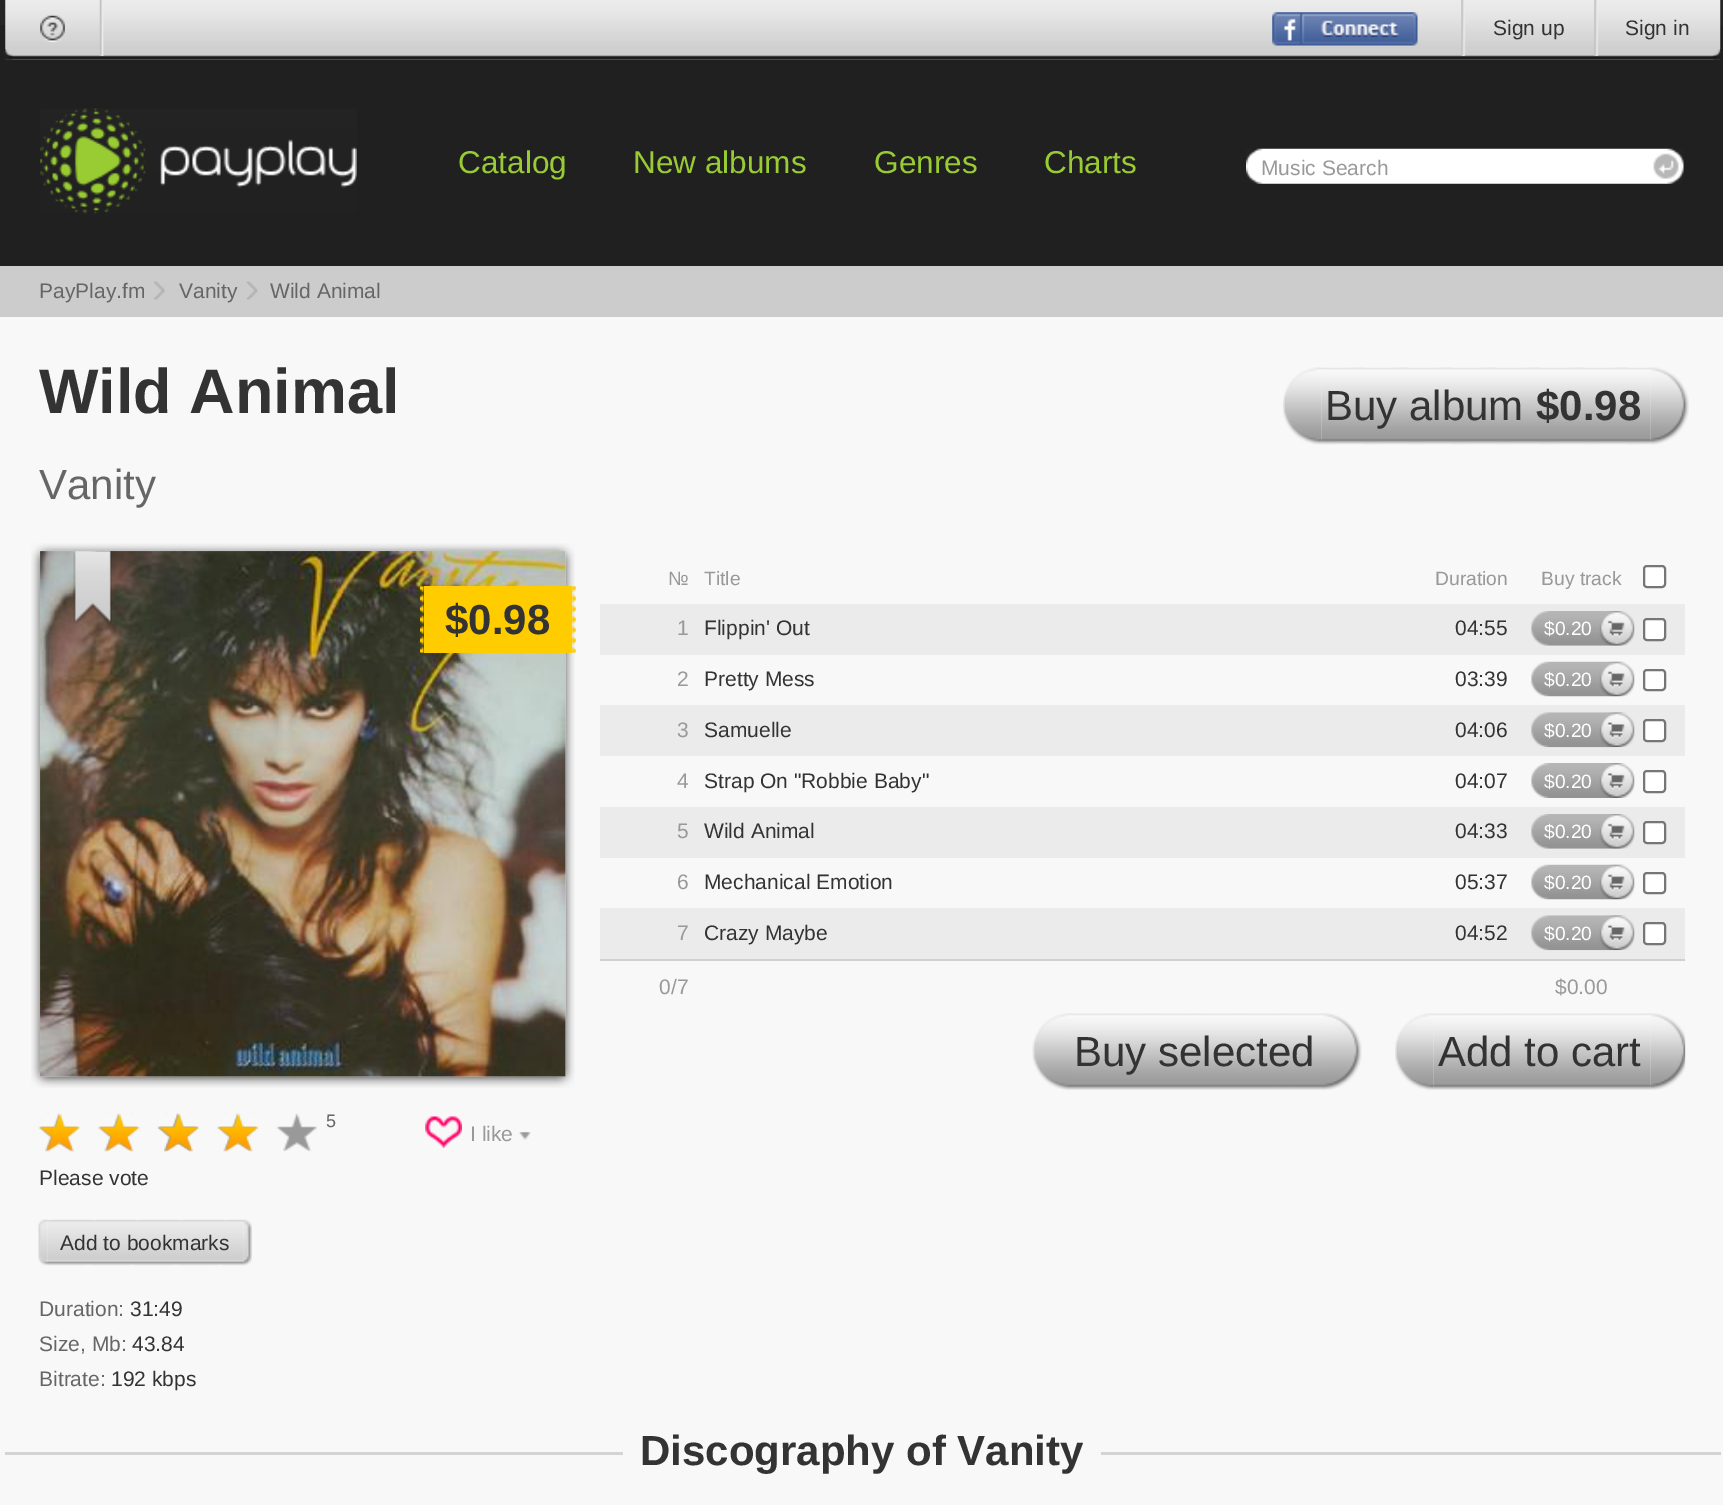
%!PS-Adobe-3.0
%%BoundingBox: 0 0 1723 1505
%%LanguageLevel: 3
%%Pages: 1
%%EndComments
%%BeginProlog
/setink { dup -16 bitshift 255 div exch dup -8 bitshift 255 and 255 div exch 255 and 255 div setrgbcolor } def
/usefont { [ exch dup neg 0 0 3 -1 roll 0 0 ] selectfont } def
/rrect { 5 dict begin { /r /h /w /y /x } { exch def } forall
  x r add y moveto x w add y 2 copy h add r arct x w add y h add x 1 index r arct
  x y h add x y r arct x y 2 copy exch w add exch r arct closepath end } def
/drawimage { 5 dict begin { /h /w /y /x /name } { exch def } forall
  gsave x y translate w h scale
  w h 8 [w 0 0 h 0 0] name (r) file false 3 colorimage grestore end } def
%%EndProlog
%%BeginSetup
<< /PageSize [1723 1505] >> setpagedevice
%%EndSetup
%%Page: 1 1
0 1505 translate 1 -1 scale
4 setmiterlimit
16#F8F8F8 setink
0 0 1723 1505 rectfill
16#202020 setink
0 25 1723 241 rectfill
16#252525 setink
0 0 1723 25 rectfill
(img1.raw) 5 0 1716 60 drawimage
(img2.raw) 99 0 5 56 drawimage
(img3.raw) 40 15 25 27 drawimage
(img4.raw) 1272 12 146 34 drawimage
(img5.raw) 1461 0 5 56 drawimage
/LiberationSans-Regular 21 usefont
16#333333 setink
1493 35 moveto (Sign up) show
(img5.raw) 1594 0 5 56 drawimage
1625 35 moveto (Sign in) show
(img6.raw) 5 49 8 11 drawimage
(img7.raw) 1713 49 8 11 drawimage
(img8.raw) 40 108 317 106 drawimage
/LiberationSans-Regular 31.5 usefont
16#99CC33 setink
[
    [(Catalog) 458 173]
    [(New albums) 633 173]
    [(Genres) 874 173]
    [(Charts) 1044 173]
] { aload pop moveto show } forall
(img9.raw) 1246 148 438 36 drawimage
/LiberationSans-Regular 21 usefont
16#999999 setink
1261 175 moveto (Music Search) show
16#CCCCCC setink
0 266 1723 51 rectfill
(img10.raw) 154 281 11 19 drawimage
16#666666 setink
39 298 moveto (PayPlay.fm) show
(img11.raw) 246 281 12 19 drawimage
179 298 moveto (Vanity) show
270 298 moveto (Wild Animal) show
/LiberationSans-Bold 63 usefont
16#333333 setink
39 413 moveto (Wild Animal) show
(img12.raw) 1321 367 330 78 drawimage
(img13.raw) 1283 367 39 78 drawimage
/LiberationSans-Regular 42 usefont
1325 420 moveto (Buy album) show
/LiberationSans-Bold 42 usefont
1536 420 moveto ($0.98) show
(img14.raw) 1650 367 39 78 drawimage
/LiberationSans-Regular 42 usefont
16#666666 setink
39 499 moveto (Vanity) show
(img15.raw) 31 543 544 545 drawimage
(img16.raw) 40 551 526 526 drawimage
(img17.raw) 73 551 39 73 drawimage
16#FFCC00 setink
424 586 148 67 rectfill
(img18.raw) 420 586 4 67 drawimage
/LiberationSans-Bold 42 usefont
16#333333 setink
445 634 moveto ($0.98) show
(img19.raw) 572 586 4 67 drawimage
(img20.raw) 157 1113 42 39 drawimage
(img21.raw) 38 1113 279 39 drawimage
(img22.raw) 39 1113 240 39 drawimage
/LiberationSans-Regular 18 usefont
16#666666 setink
326 1127 moveto (5) show
(img23.raw) 425 1116 37 32 drawimage
/LiberationSans-Regular 21 usefont
16#999999 setink
470 1141 moveto (I like) show
(img24.raw) 519 1132 12 8 drawimage
16#333333 setink
39 1185 moveto (Please vote) show
(img25.raw) 47 1219 197 47 drawimage
(img26.raw) 38 1219 10 47 drawimage
60 1250 moveto (Add to bookmarks) show
(img27.raw) 243 1219 9 47 drawimage
16#666666 setink
39 1316 moveto (Duration:) show
16#333333 setink
130 1316 moveto (31:49) show
16#666666 setink
39 1351 moveto (Size, Mb:) show
16#333333 setink
132 1351 moveto (43.84) show
16#666666 setink
39 1386 moveto (Bitrate:) show
16#333333 setink
111 1386 moveto (192 kbps) show
/LiberationSans-Regular 19.25 usefont
16#999999 setink
[
    [(№) 668 585]
    [(Title) 704 585]
    [(Duration) 1435 585]
    [(Buy track) 1541 585]
] { aload pop moveto show } forall
16#FFFFFF setink
1644 566 21 21 3 rrect gsave fill grestore
16#767676 setink
2 setlinewidth
stroke
16#EBEBEB setink
600 604 1085 51 rectfill
/LiberationSans-Regular 21 usefont
16#999999 setink
677 635 moveto (1) show
16#333333 setink
704 635 moveto (Flippin' Out) show
1455 635 moveto (04:55) show
(img28.raw) 1531 611 104 35 drawimage
/LiberationSans-Regular 19.25 usefont
16#FFFFFF setink
1544 635 moveto ($0.20) show
(img29.raw) 1599 611 36 35 drawimage
1644 619 21 21 3 rrect gsave fill grestore
16#767676 setink
stroke
/LiberationSans-Regular 21 usefont
16#999999 setink
677 686 moveto (2) show
16#333333 setink
704 686 moveto (Pretty Mess) show
1455 686 moveto (03:39) show
(img30.raw) 1531 661 104 36 drawimage
/LiberationSans-Regular 19.25 usefont
16#FFFFFF setink
1544 686 moveto ($0.20) show
(img31.raw) 1599 661 36 36 drawimage
1644 670 21 20 3 rrect gsave fill grestore
16#767676 setink
stroke
16#EBEBEB setink
600 705 1085 51 rectfill
/LiberationSans-Regular 21 usefont
16#999999 setink
677 737 moveto (3) show
16#333333 setink
704 737 moveto (Samuelle) show
1455 737 moveto (04:06) show
(img32.raw) 1531 712 104 36 drawimage
/LiberationSans-Regular 19.25 usefont
16#FFFFFF setink
1544 737 moveto ($0.20) show
(img33.raw) 1599 712 36 35 drawimage
1644 720 21 21 3 rrect gsave fill grestore
16#767676 setink
stroke
/LiberationSans-Regular 21 usefont
16#999999 setink
677 788 moveto (4) show
16#333333 setink
704 788 moveto (Strap On "Robbie Baby") show
1455 788 moveto (04:07) show
(img34.raw) 1531 763 104 35 drawimage
/LiberationSans-Regular 19.25 usefont
16#FFFFFF setink
1544 788 moveto ($0.20) show
(img35.raw) 1599 763 36 35 drawimage
1644 771 21 21 3 rrect gsave fill grestore
16#767676 setink
stroke
16#EBEBEB setink
600 807 1085 51 rectfill
/LiberationSans-Regular 21 usefont
16#999999 setink
677 838 moveto (5) show
16#333333 setink
704 838 moveto (Wild Animal) show
1455 838 moveto (04:33) show
(img28.raw) 1531 814 104 35 drawimage
/LiberationSans-Regular 19.25 usefont
16#FFFFFF setink
1544 838 moveto ($0.20) show
(img36.raw) 1599 814 36 35 drawimage
1644 822 21 21 3 rrect gsave fill grestore
16#767676 setink
stroke
/LiberationSans-Regular 21 usefont
16#999999 setink
677 889 moveto (6) show
16#333333 setink
704 889 moveto (Mechanical Emotion) show
1455 889 moveto (05:37) show
(img30.raw) 1531 864 104 36 drawimage
/LiberationSans-Regular 19.25 usefont
16#FFFFFF setink
1544 889 moveto ($0.20) show
(img31.raw) 1599 864 36 36 drawimage
1644 873 21 20 3 rrect gsave fill grestore
16#767676 setink
stroke
16#EBEBEB setink
600 908 1085 51 rectfill
/LiberationSans-Regular 21 usefont
16#999999 setink
677 940 moveto (7) show
16#333333 setink
704 940 moveto (Crazy Maybe) show
1455 940 moveto (04:52) show
(img32.raw) 1531 915 104 36 drawimage
/LiberationSans-Regular 19.25 usefont
16#FFFFFF setink
1544 940 moveto ($0.20) show
(img37.raw) 1599 915 36 35 drawimage
1644 923 21 21 3 rrect gsave fill grestore
16#767676 setink
stroke
16#D0D0D0 setink
600 959 1085 2 rectfill
/LiberationSans-Regular 21 usefont
16#999999 setink
659 994 moveto (0/7) show
1555 994 moveto ($0.00) show
(img38.raw) 1071 1013 252 77 drawimage
(img39.raw) 1032 1013 39 77 drawimage
/LiberationSans-Regular 42 usefont
16#333333 setink
1074 1066 moveto (Buy selected) show
(img40.raw) 1323 1013 39 77 drawimage
(img41.raw) 1433 1013 218 77 drawimage
(img42.raw) 1395 1013 39 77 drawimage
1438 1066 moveto (Add to cart) show
(img43.raw) 1650 1013 36 77 drawimage
16#D4D4D4 setink
5 1452 1716 3 rectfill
16#F8F8F8 setink
623 1452 478 3 rectfill
/LiberationSans-Bold 42 usefont
16#333333 setink
640 1465 moveto (Discography of Vanity) show
showpage
%%EOF
